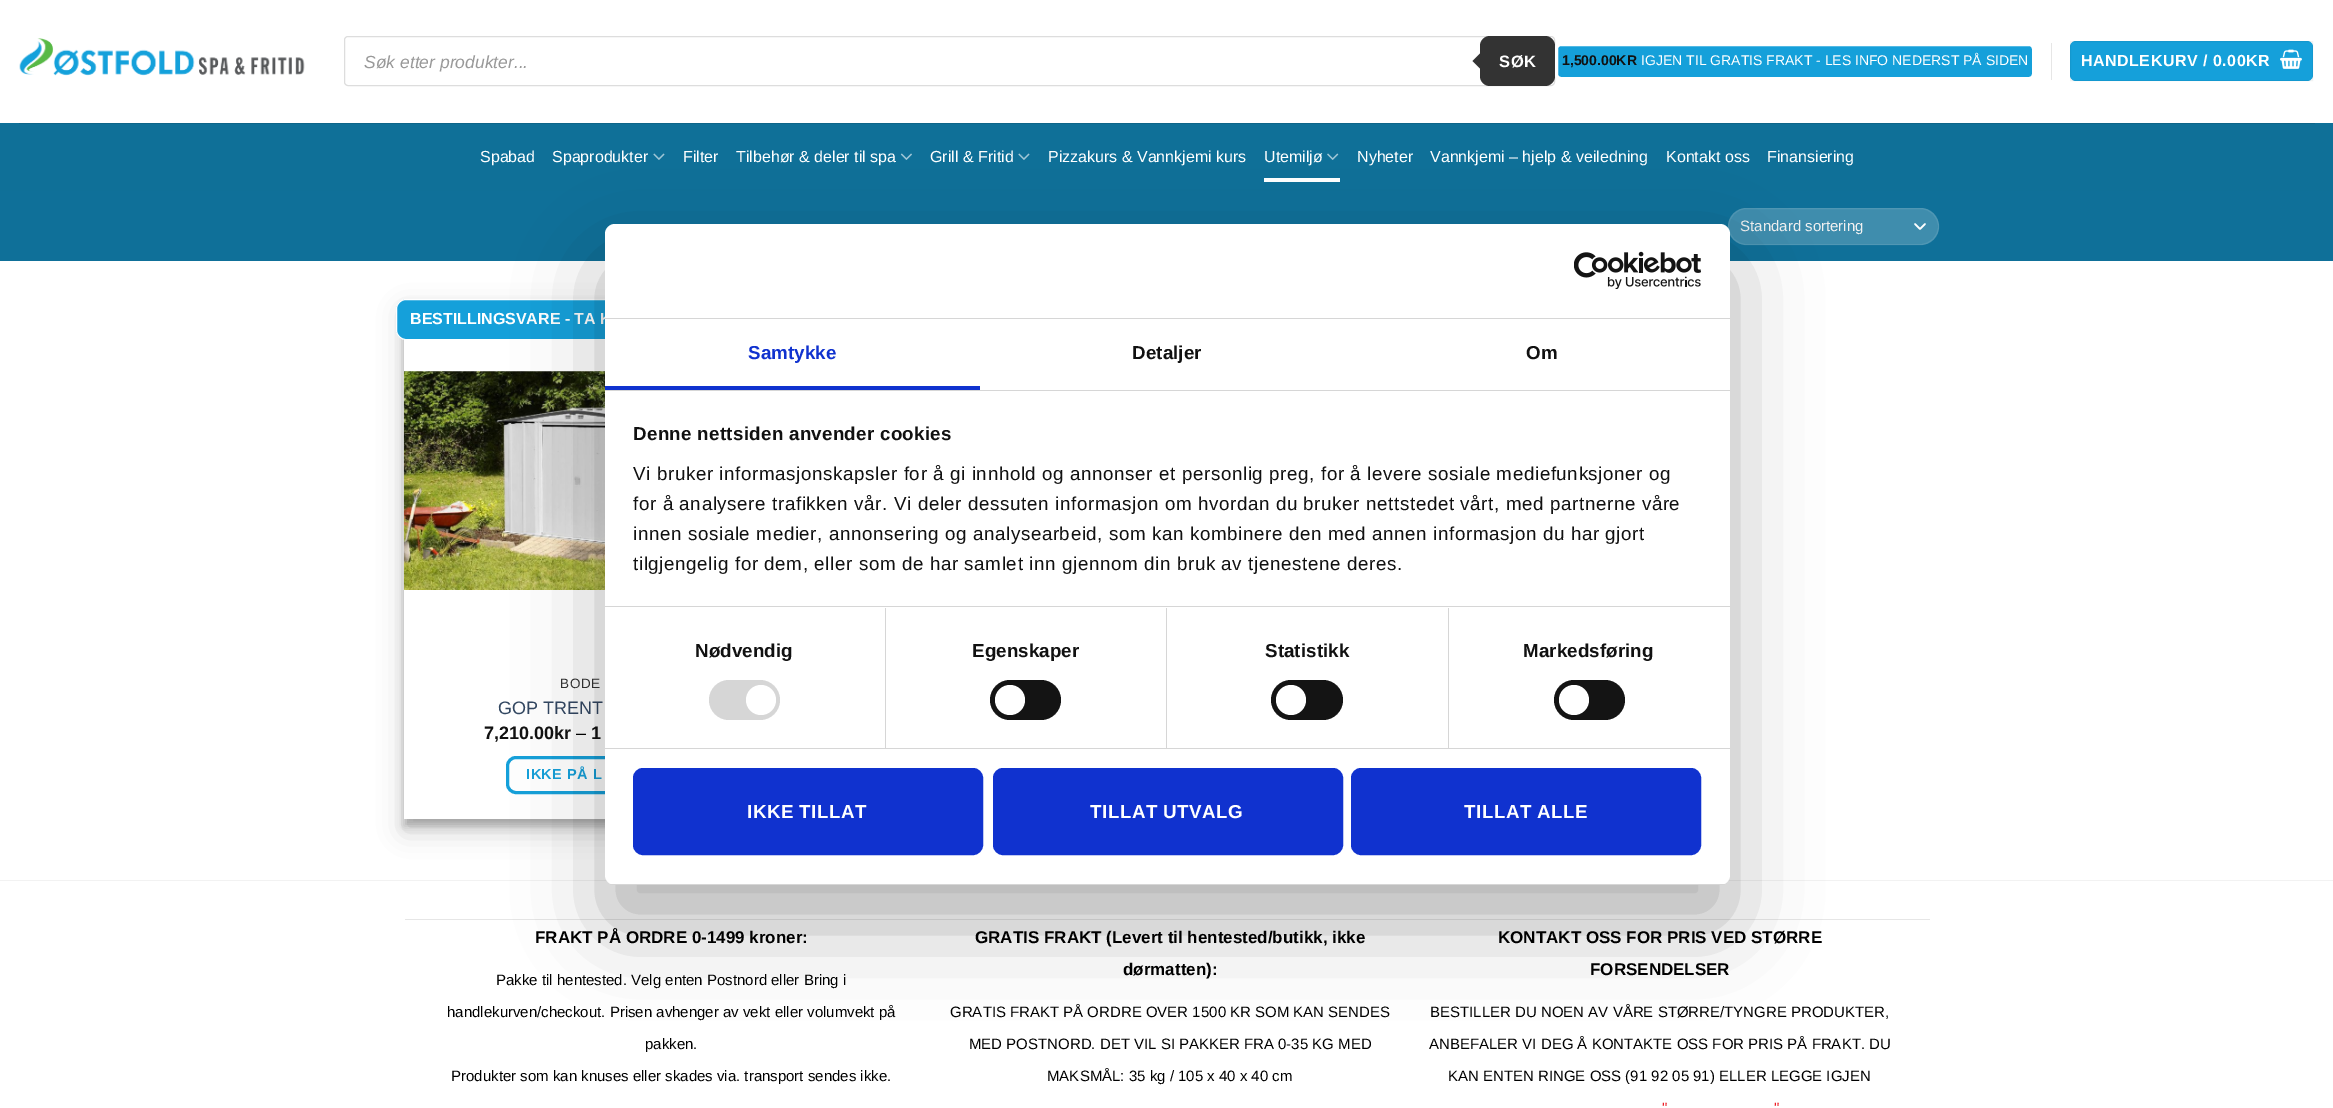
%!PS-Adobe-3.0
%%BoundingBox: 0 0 2333 1108
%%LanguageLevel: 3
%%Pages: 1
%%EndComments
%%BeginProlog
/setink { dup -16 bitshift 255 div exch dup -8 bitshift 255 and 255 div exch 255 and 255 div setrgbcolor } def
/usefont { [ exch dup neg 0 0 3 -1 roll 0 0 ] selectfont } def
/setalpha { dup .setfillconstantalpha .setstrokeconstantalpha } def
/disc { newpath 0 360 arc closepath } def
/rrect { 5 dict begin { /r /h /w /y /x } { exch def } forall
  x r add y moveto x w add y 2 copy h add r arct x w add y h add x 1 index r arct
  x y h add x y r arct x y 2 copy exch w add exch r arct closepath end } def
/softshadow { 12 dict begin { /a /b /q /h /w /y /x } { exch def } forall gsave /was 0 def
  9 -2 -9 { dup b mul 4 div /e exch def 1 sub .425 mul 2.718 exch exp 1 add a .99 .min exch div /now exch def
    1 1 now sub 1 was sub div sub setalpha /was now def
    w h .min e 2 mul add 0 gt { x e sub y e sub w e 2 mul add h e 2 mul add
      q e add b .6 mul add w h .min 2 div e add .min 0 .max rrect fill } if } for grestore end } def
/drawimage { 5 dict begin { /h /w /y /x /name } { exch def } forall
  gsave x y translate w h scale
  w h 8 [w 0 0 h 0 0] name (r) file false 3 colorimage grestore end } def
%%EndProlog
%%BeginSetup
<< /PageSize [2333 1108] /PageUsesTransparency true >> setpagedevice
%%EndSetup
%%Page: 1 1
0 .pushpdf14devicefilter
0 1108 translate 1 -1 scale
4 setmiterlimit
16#FFFFFF setink
0 0 2333 1108 rectfill
(img1.raw) 19 38 286 38 drawimage
16#DDDDDD setink
344.5 36.5 1210 49 3.5 rrect stroke
/LiberationSans-Italic 17.5 usefont
16#999999 setink
364 68 moveto (Søk etter produkter...) show
16#333333 setink
1480 36 75 50 10 rrect fill
1482.5 51 moveto 1482.5 71 lineto 1472.5 61 lineto closepath fill
/LiberationSans-Bold 16.5 usefont
16#FFFFFF setink
1499 67 moveto 0.5 0 (SØK) ashow
16#15A0DA setink
1556.5 44.5 477 34 4.5 rrect gsave fill grestore
16#FFFFFF setink
3 setlinewidth
stroke
/LiberationSans-Bold 14 usefont
16#111111 setink
1562 65 moveto (1,500.00KR) show
/LiberationSans-Regular 14 usefont
16#FFFFFF setink
1641 65 moveto (IGJEN TIL GRATIS FRAKT - LES INFO NEDERST PÅ SIDEN) show
16#E6E6E6 setink
2051 43 1 37 rectfill
16#15A0DA setink
2070 41 243 40 6 rrect fill
0.05 setalpha
16#000000 setink
1 setlinewidth
2070.5 41.5 242 39 rectstroke
/LiberationSans-Bold 16 usefont
1 setalpha
16#FFFFFF setink
2081 66 moveto 0.5 0 (HANDLEKURV / 0.00KR) ashow
(img2.raw) 2280 49 22 20 drawimage
16#0F7098 setink
0 123 2333 68 rectfill
16#0E6589 setink
19 123 2296 1 rectfill
/LiberationSans-Regular 16 usefont
16#FFFFFF setink
480 162 moveto (Spabad) show
552 162 moveto (Spaprodukter) show
(img3.raw) 653 153 12 7 drawimage
683 162 moveto (Filter) show
736 162 moveto (Tilbehør & deler til spa) show
(img4.raw) 900 153 12 7 drawimage
930 162 moveto (Grill & Fritid) show
(img3.raw) 1018 153 12 7 drawimage
1048 162 moveto (Pizzakurs & Vannkjemi kurs) show
1264 162 moveto (Utemiljø) show
(img5.raw) 1327 153 12 7 drawimage
1264 178 76 4 rectfill
[
    [(Nyheter) 1357 162]
    [(Vannkjemi – hjelp & veiledning) 1430 162]
    [(Kontakt oss) 1666 162]
    [(Finansiering) 1767 162]
] { aload pop moveto show } forall
16#0F7099 setink
0 191 2333 70 rectfill
16#3F8DAD setink
1728 208 211 37 18.5 rrect fill
16#FFFFFF setink
1.7 setlinewidth
1 setlinecap
1 setlinejoin
1915 224 moveto 1920 229 lineto 1925 224 lineto stroke
0.09 setalpha
1 setlinewidth
0 setlinecap
0 setlinejoin
1728.5 208.5 210 36 18 rrect stroke
/LiberationSans-Regular 15 usefont
1 setalpha
16#F1F1F1 setink
1740 231 moveto (Standard sortering) show
16#000000 setink
404 306 364 520 0 4 0.22 softshadow
404 311 364 520 0 12.5 0.19 softshadow
16#FFFFFF setink
404 299 201 520 rectfill
16#15A0DA setink
396.5 299.5 296 40 9.5 rrect gsave fill grestore
16#FFFFFF setink
stroke
/LiberationSans-Bold 16 usefont
410 324 moveto (BESTILLINGSVARE - TA K) show
(img6.raw) 403 371 202 219 drawimage
/LiberationSans-Regular 13.5 usefont
16#333333 setink
560 688 moveto 0.5 0 (BODE) ashow
/LiberationSans-Regular 18 usefont
16#334862 setink
498 714 moveto (GOP TRENT) show
/LiberationSans-Bold 18 usefont
16#111111 setink
484 739 moveto (7,210.00kr) show
/LiberationSans-Regular 18 usefont
16#000000 setink
576 739 moveto (–) show
/LiberationSans-Bold 18 usefont
16#111111 setink
591 739 moveto (1) show
16#15A0DA setink
3 setlinewidth
507.5 757.5 156 35 8.5 rrect stroke
/LiberationSans-Bold 14.5 usefont
526 779 moveto 0.5 0 (IKKE PÅ L) ashow
16#F2F2F2 setink
0 880 2333 1 rectfill
16#E6E6E6 setink
405 919 1525 1 rectfill
/LiberationSans-Bold 17 usefont
16#000000 setink
535 943 moveto (FRAKT PÅ ORDRE 0-1499 kroner:) show
/LiberationSans-Regular 15 usefont
[
    [(Pakke til hentested. Velg enten Postnord eller Bring i) 496 985]
    [(handlekurven/checkout. Prisen avhenger av vekt eller volumvekt på) 447 1017]
    [(pakken.) 645 1049]
    [(Produkter som kan knuses eller skades via. transport sendes ikke.) 451 1081]
] { aload pop moveto show } forall
/LiberationSans-Bold 17 usefont
975 943 moveto (GRATIS FRAKT \(Levert til hentested/butikk, ikke) show
1123 975 moveto (dørmatten\):) show
/LiberationSans-Regular 15 usefont
[
    [(GRATIS FRAKT PÅ ORDRE OVER 1500 KR SOM KAN SENDES) 950 1017]
    [(MED POSTNORD. DET VIL SI PAKKER FRA 0-35 KG MED) 969 1049]
    [(MAKSMÅL: 35 kg / 105 x 40 x 40 cm) 1047 1081]
] { aload pop moveto show } forall
/LiberationSans-Bold 17 usefont
1498 943 moveto (KONTAKT OSS FOR PRIS VED STØRRE) show
1590 975 moveto (FORSENDELSER) show
/LiberationSans-Regular 15 usefont
[
    [(BESTILLER DU NOEN AV VÅRE STØRRE/TYNGRE PRODUKTER,) 1430 1017]
    [(ANBEFALER VI DEG Å KONTAKTE OSS FOR PRIS PÅ FRAKT. DU) 1429 1049]
    [(KAN ENTEN RINGE OSS \(91 92 05 91\) ELLER LEGGE IGJEN) 1448 1081]
] { aload pop moveto show } forall
16#ED1C24 setink
1662 1113 moveto (") show
1774 1113 moveto (") show
16#000000 setink
605 264 1125 661 10 42.5 0.3 softshadow
16#FFFFFF setink
605 224 1125 661 10 rrect fill
16#D6D6D6 setink
605 318 1125 1 rectfill
(img7.raw) 1574 251 127 38 drawimage
605 390 1125 1 rectfill
16#1032CF setink
605 386 375 4 rectfill
/LiberationSans-Bold 18.75 usefont
748 359 moveto 0.1 0 (Samtykke) ashow
16#111111 setink
1132 359 moveto 0.1 0 (Detaljer) ashow
1526 359 moveto 0.1 0 (Om) ashow
16#D6D6D6 setink
605 606 1125 1 rectfill
16#111111 setink
633 440 moveto 0.3 0 (Denne nettsiden anvender cookies) ashow
/LiberationSans-Regular 18.75 usefont
633 480 moveto 0.62 0 (Vi bruker informasjonskapsler for å gi innhold og annonser et personlig preg, for å levere sosiale mediefunksjoner og) ashow
633 510 moveto 0.62 0 (for å analysere trafikken vår. Vi deler dessuten informasjon om hvordan du bruker nettstedet vårt, med partnerne våre) ashow
633 540 moveto 0.62 0 (innen sosiale medier, annonsering og analysearbeid, som kan kombinere den med annen informasjon du har gjort) ashow
633 570 moveto 0.62 0 (tilgjengelig for dem, eller som de har samlet inn gjennom din bruk av tjenestene deres.) ashow
16#D6D6D6 setink
605 748 1125 1 rectfill
885 608 1 140 rectfill
/LiberationSans-Bold 18.75 usefont
16#111111 setink
695 657 moveto 0.1 0 (Nødvendig) ashow
16#D6D6D6 setink
709 680 71 40 20 rrect fill
16#FFFFFF setink
761 700 15 disc fill
16#D6D6D6 setink
1166 608 1 140 rectfill
16#111111 setink
972 657 moveto 0.1 0 (Egenskaper) ashow
16#141414 setink
990 680 71 40 20 rrect fill
16#FFFFFF setink
1010 700 15 disc fill
16#D6D6D6 setink
1448 608 1 140 rectfill
16#111111 setink
1265 657 moveto 0.1 0 (Statistikk) ashow
16#141414 setink
1271 680 72 40 20 rrect fill
16#FFFFFF setink
1291 700 15 disc fill
16#111111 setink
1523 657 moveto 0.1 0 (Markedsføring) ashow
16#141414 setink
1554 680 71 40 20 rrect fill
16#FFFFFF setink
1574 700 15 disc fill
gsave
605 224 1125 661 10 rrect clip newpath
16#D6D6D6 setink
605 884 1125 1 rectfill
grestore
16#1032CF setink
634.5 769.5 347 84 8.5 rrect gsave fill grestore
stroke
16#FFFFFF setink
747 818 moveto 0.5 0 (IKKE TILLAT) ashow
16#1032CF setink
994.5 769.5 347 84 8.5 rrect gsave fill grestore
stroke
16#FFFFFF setink
1090 818 moveto 0.5 0 (TILLAT UTVALG) ashow
16#1032CF setink
1352.5 769.5 347 84 8.5 rrect gsave fill grestore
stroke
16#FFFFFF setink
1464 818 moveto 0.5 0 (TILLAT ALLE) ashow
.poppdf14devicefilter showpage
%%EOF
